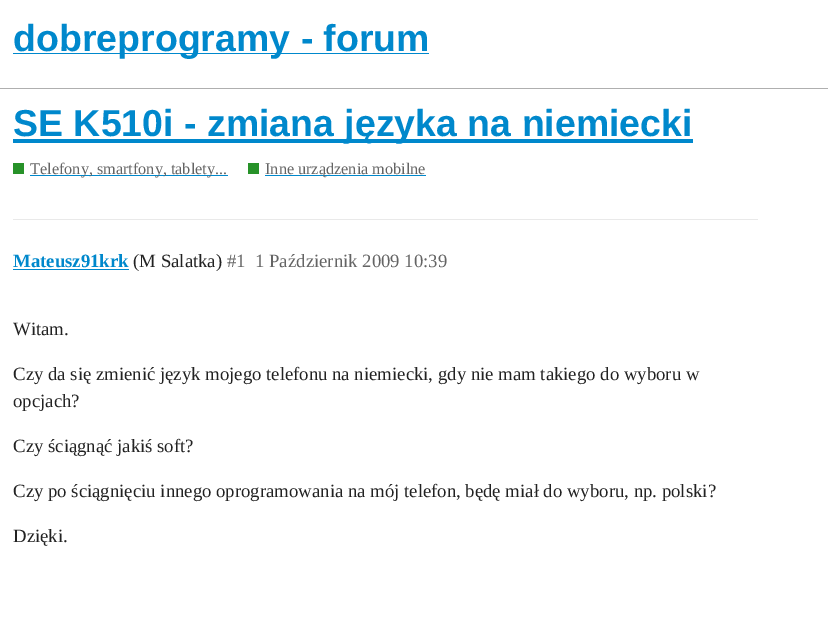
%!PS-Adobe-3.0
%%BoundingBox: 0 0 828 622
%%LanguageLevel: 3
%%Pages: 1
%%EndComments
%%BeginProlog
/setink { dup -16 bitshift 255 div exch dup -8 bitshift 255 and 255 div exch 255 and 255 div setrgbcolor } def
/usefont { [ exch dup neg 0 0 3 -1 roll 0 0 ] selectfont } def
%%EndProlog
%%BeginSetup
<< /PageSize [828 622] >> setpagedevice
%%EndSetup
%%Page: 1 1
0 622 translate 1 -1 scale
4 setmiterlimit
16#FFFFFF setink
0 0 828 622 rectfill
16#AFAFAF setink
0 88 828 1 rectfill
16#0088CC setink
13 53 416 1 rectfill
/LiberationSans-Bold 37.5 usefont
13 51 moveto (dobreprogramy - forum) show
13 139 680 4 rectfill
13 136 moveto (SE K510i - zmiana języka na niemiecki) show
16#279229 setink
13 163 11 11 rectfill
16#0088CC setink
30 175 198 1 rectfill
/LiberationSerif-Regular 16.25 usefont
16#646464 setink
30 174 moveto (Telefony, smartfony, tablety...) show
16#279229 setink
248 163 11 11 rectfill
16#0088CC setink
265 175 161 1 rectfill
16#646464 setink
265 174 moveto (Inne urządzenia mobilne) show
16#E9E9E9 setink
13 219 745 1 rectfill
/LiberationSerif-Bold 18.75 usefont
16#0088CC setink
13 267 moveto (Mateusz91krk) show
13 269 116 1 rectfill
/LiberationSerif-Regular 18.75 usefont
16#222222 setink
133 267 moveto (\(M Salatka\)) show
16#646464 setink
227 267 moveto (#1) show
255 267 moveto (1 Październik 2009 10:39) show
16#222222 setink
[
    [(Witam.) 13 335]
    [(Czy da się zmienić język mojego telefonu na niemiecki, gdy nie mam takiego do wyboru w) 13 380]
    [(opcjach?) 13 407]
    [(Czy ściągnąć jakiś soft?) 13 452]
    [(Czy po ściągnięciu innego oprogramowania na mój telefon, będę miał do wyboru, np. polski?) 13 497]
    [(Dzięki.) 13 542]
] { aload pop moveto show } forall
showpage
%%EOF
